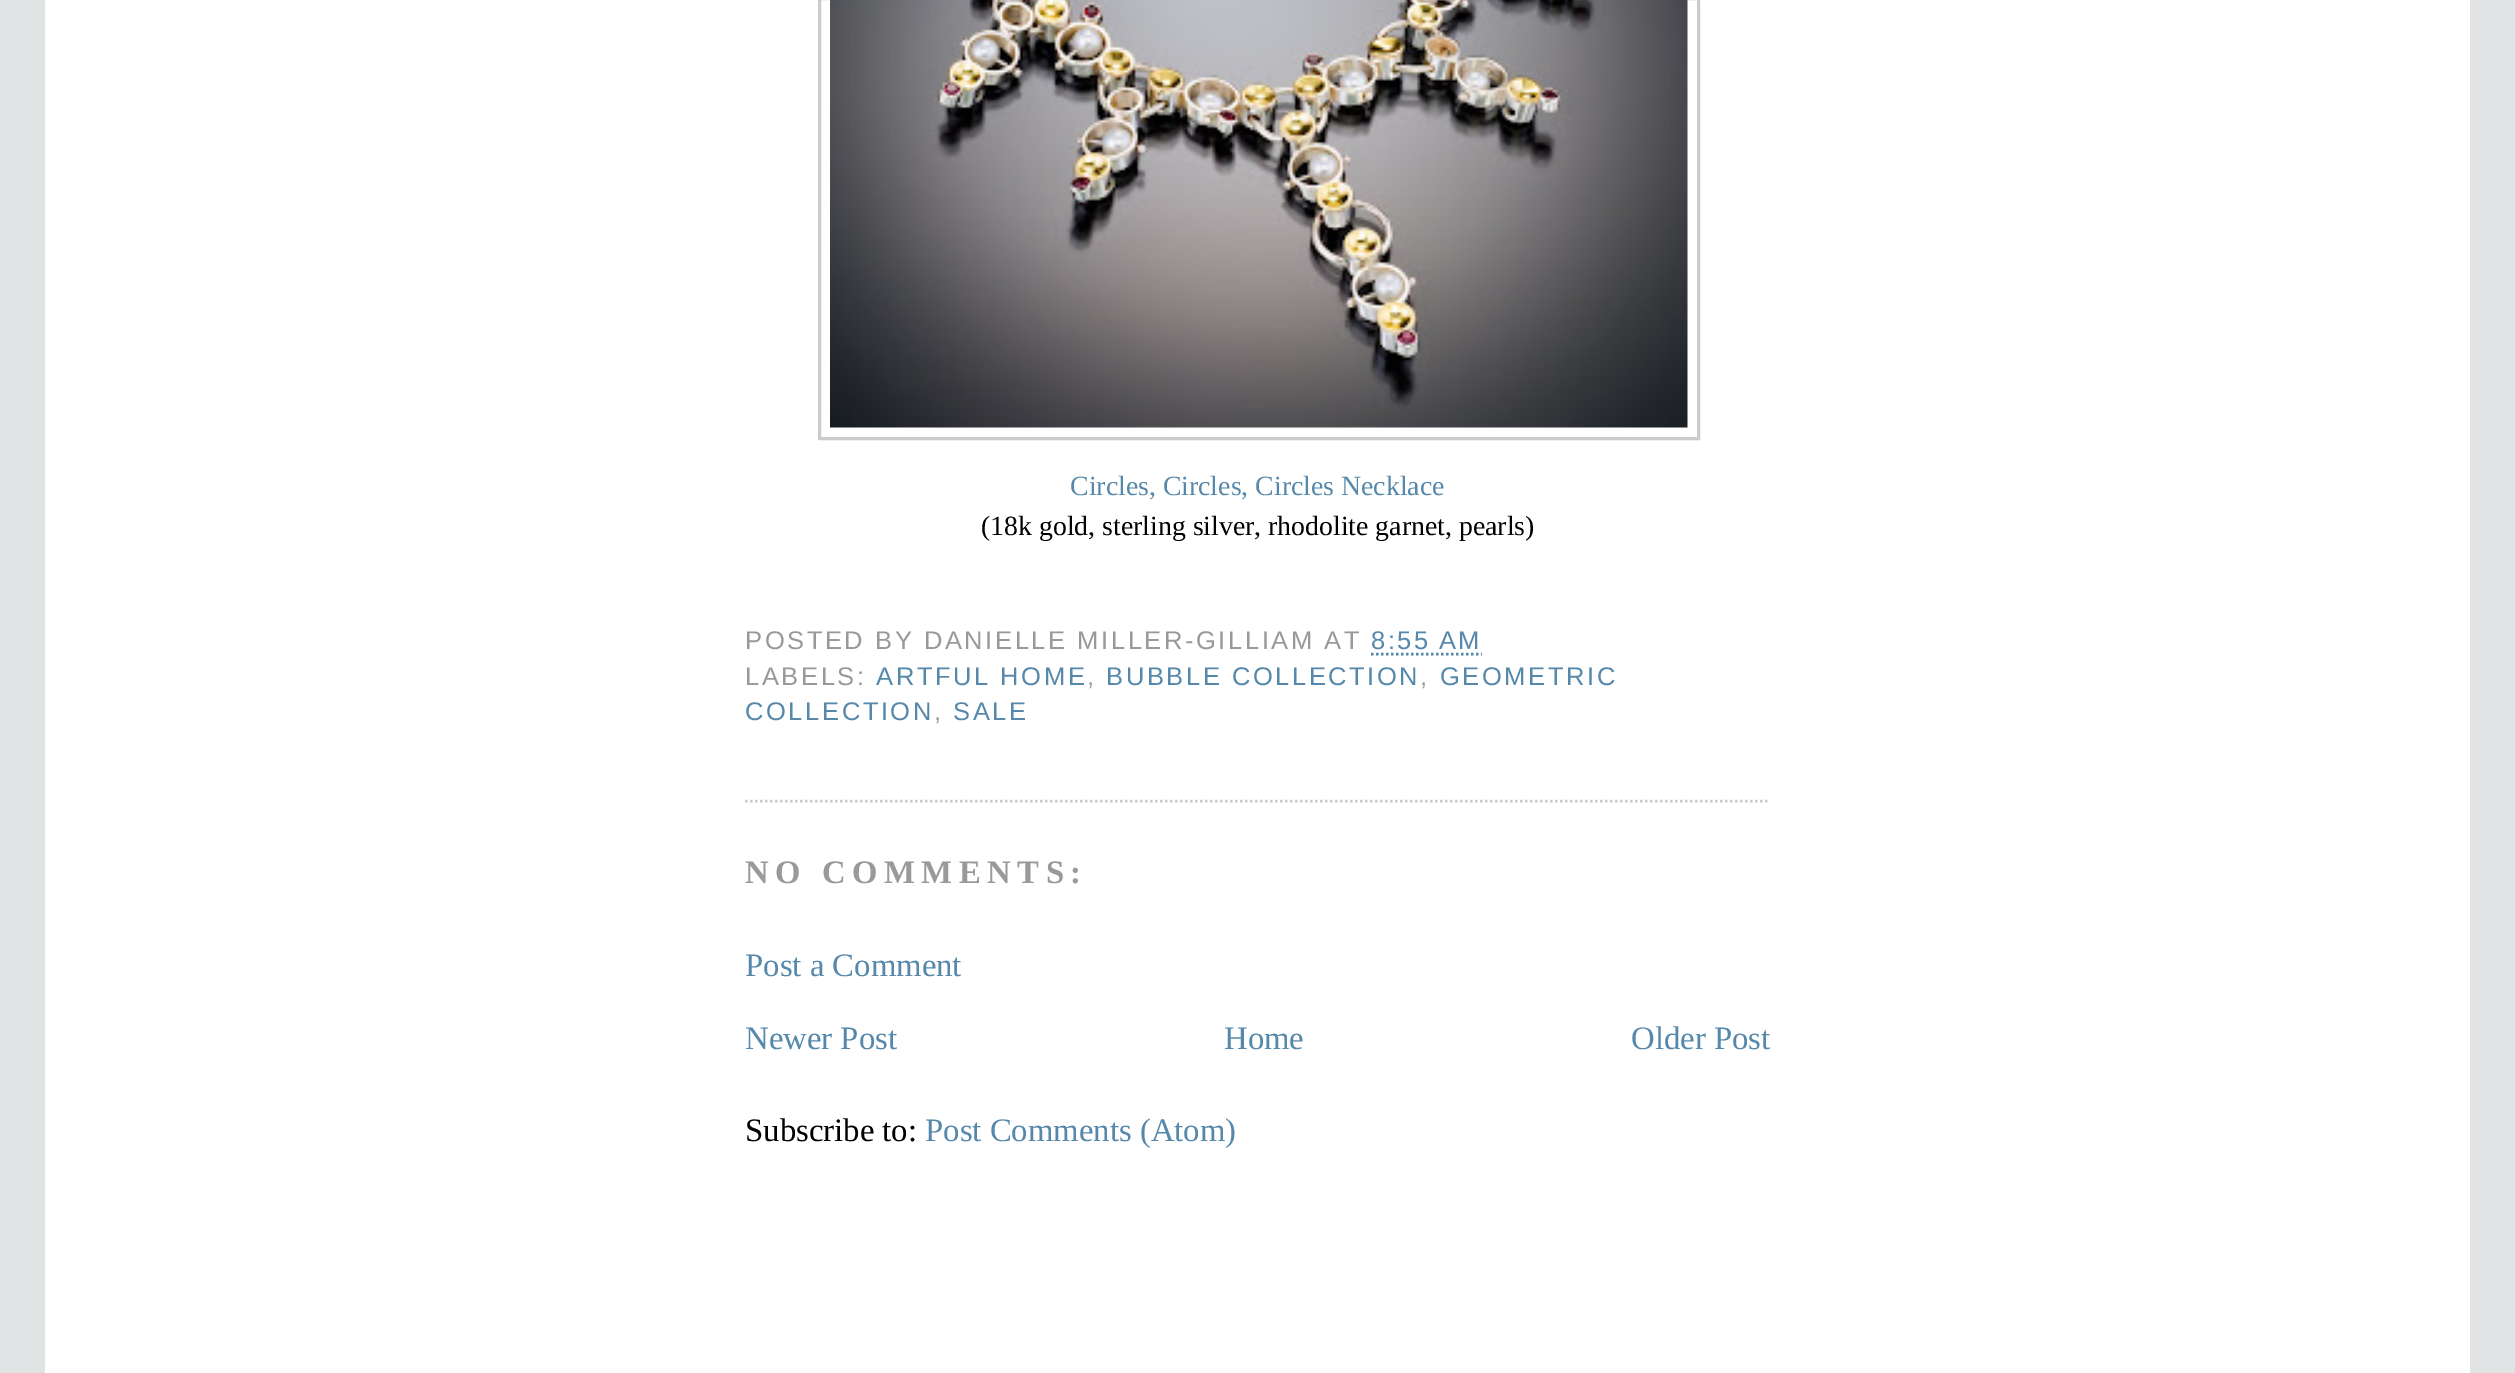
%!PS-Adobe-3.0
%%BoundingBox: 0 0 2515 1373
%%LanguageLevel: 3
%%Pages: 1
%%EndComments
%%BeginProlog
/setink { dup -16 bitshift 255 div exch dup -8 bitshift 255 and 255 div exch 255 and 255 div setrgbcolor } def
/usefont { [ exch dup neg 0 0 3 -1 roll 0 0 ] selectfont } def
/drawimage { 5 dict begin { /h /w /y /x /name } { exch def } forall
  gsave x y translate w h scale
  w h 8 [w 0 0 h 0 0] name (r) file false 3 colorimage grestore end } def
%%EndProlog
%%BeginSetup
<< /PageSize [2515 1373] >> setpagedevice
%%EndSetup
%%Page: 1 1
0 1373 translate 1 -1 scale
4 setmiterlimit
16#E2E3E4 setink
0 0 2515 1373 rectfill
16#FFFFFF setink
45 0 2425 1373 rectfill
16#CCCCCC setink
2.5 setlinewidth
[2.5 2.5] 0 setdash
745 801 moveto 1770 801 lineto stroke
3 setlinewidth
[] 0 setdash
819.5 -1.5 879 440 rectstroke
(img1.raw) 830 0 858 428 drawimage
/LiberationSerif-Regular 27.8 usefont
16#5588AA setink
1070 495 moveto (Circles, Circles, Circles Necklace) show
16#000000 setink
981 535 moveto (\(18k gold, sterling silver, rhodolite garnet, pearls\)) show
/LiberationSans-Regular 25.55 usefont
16#999999 setink
745 649 moveto 2.55 0 (POSTED BY DANIELLE MILLER-GILLIAM) ashow
1324 649 moveto 2.55 0 (AT) ashow
16#5588AA setink
1371 649 moveto 2.55 0 (8:55 AM) ashow
2.5 setlinewidth
[2.5 2.5] 0 setdash
1371 654 moveto 1482 654 lineto stroke
16#999999 setink
745 685 moveto 2.55 0 (LABELS:) ashow
16#5588AA setink
876 685 moveto 2.55 0 (ARTFUL HOME) ashow
16#999999 setink
1087 685 moveto 2.55 0 (,) ashow
16#5588AA setink
1106 685 moveto 2.55 0 (BUBBLE COLLECTION) ashow
16#999999 setink
1420 685 moveto 2.55 0 (,) ashow
16#5588AA setink
1440 685 moveto 2.55 0 (GEOMETRIC) ashow
745 720 moveto 2.55 0 (COLLECTION) ashow
16#999999 setink
934 720 moveto 2.55 0 (,) ashow
16#5588AA setink
953 720 moveto 2.55 0 (SALE) ashow
/LiberationSerif-Bold 32.75 usefont
16#999999 setink
745 883 moveto 6.5 0 (NO COMMENTS:) ashow
/LiberationSerif-Regular 32.75 usefont
16#5588AA setink
[
    [(Post a Comment) 745 976]
    [(Newer Post) 745 1049]
    [(Home) 1224 1049]
    [(Older Post) 1631 1049]
] { aload pop moveto show } forall
16#000000 setink
745 1141 moveto (Subscribe to:) show
16#5588AA setink
925 1141 moveto (Post Comments \(Atom\)) show
showpage
%%EOF
